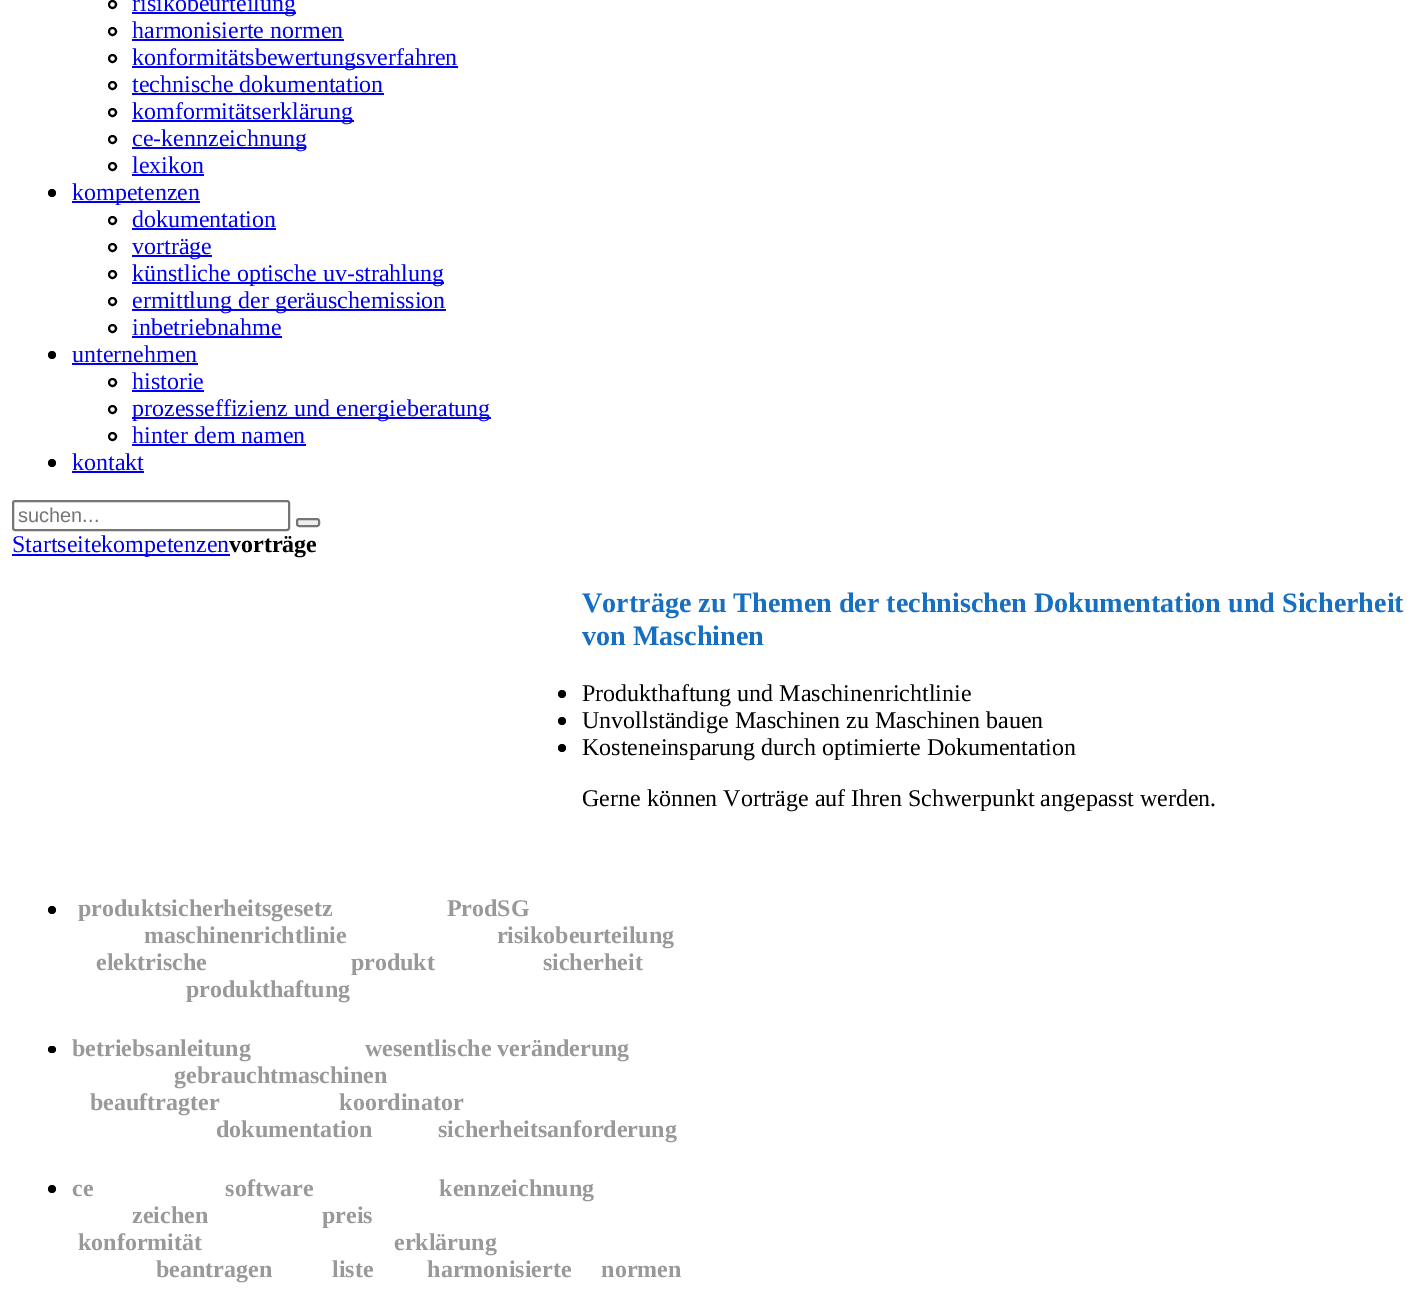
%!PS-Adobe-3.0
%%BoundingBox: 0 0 1415 1293
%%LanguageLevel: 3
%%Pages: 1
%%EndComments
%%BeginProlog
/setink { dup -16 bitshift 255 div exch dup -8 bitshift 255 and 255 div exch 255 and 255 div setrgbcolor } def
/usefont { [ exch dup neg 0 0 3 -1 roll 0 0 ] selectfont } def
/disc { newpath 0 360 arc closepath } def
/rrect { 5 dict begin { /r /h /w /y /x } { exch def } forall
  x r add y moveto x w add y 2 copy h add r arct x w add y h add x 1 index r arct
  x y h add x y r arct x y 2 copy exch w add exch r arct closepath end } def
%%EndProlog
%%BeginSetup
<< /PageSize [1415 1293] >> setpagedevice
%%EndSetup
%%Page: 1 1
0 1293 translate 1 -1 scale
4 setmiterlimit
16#FFFFFF setink
0 0 1415 1293 rectfill
16#000000 setink
2 setlinewidth
112.5 4.5 3.5 disc stroke
16#0000EE setink
132 12 164 2 rectfill
/LiberationSerif-Regular 24 usefont
132 11 moveto (risikobeurteilung) show
16#000000 setink
112.5 31.5 3.5 disc stroke
16#0000EE setink
132 38 moveto (harmonisierte normen) show
132 39 212 2 rectfill
16#000000 setink
112.5 58.5 3.5 disc stroke
16#0000EE setink
132 66 326 2 rectfill
132 65 moveto (konformitätsbewertungsverfahren) show
16#000000 setink
112.5 85.5 3.5 disc stroke
16#0000EE setink
132 92 moveto (technische dokumentation) show
132 93 252 2 rectfill
16#000000 setink
112.5 112.5 3.5 disc stroke
16#0000EE setink
132 120 222 2 rectfill
132 119 moveto (komformitätserklärung) show
16#000000 setink
112.5 139.5 3.5 disc stroke
16#0000EE setink
132 147 174 2 rectfill
132 146 moveto (ce-kennzeichnung) show
16#000000 setink
112.5 166.5 3.5 disc stroke
16#0000EE setink
132 173 moveto (lexikon) show
132 174 72 2 rectfill
16#000000 setink
52 193 4 disc fill
16#0000EE setink
72 201 128 2 rectfill
72 200 moveto (kompetenzen) show
16#000000 setink
112.5 220.5 3.5 disc stroke
16#0000EE setink
132 227 moveto (dokumentation) show
132 228 144 2 rectfill
16#000000 setink
112.5 247.5 3.5 disc stroke
16#0000EE setink
132 255 80 2 rectfill
132 254 moveto (vorträge) show
16#000000 setink
112.5 274.5 3.5 disc stroke
16#0000EE setink
132 282 312 2 rectfill
132 281 moveto (künstliche optische uv-strahlung) show
16#000000 setink
112.5 301.5 3.5 disc stroke
16#0000EE setink
132 309 314 2 rectfill
132 308 moveto (ermittlung der geräuschemission) show
16#000000 setink
112.5 328.5 3.5 disc stroke
16#0000EE setink
132 335 moveto (inbetriebnahme) show
132 336 150 2 rectfill
16#000000 setink
52 355 4 disc fill
16#0000EE setink
72 362 moveto (unternehmen) show
72 363 126 2 rectfill
16#000000 setink
112.5 382.5 3.5 disc stroke
16#0000EE setink
132 389 moveto (historie) show
132 390 72 2 rectfill
16#000000 setink
112.5 409.5 3.5 disc stroke
16#0000EE setink
132 417 359 2 rectfill
132 416 moveto (prozesseffizienz und energieberatung) show
16#000000 setink
112.5 436.5 3.5 disc stroke
16#0000EE setink
132 443 moveto (hinter dem namen) show
132 444 174 2 rectfill
16#000000 setink
52 463 4 disc fill
16#0000EE setink
72 470 moveto (kontakt) show
72 471 72 2 rectfill
16#767676 setink
13 501 276 29 2 rrect stroke
/LiberationSans-Regular 20 usefont
16#757575 setink
18 522 moveto (suchen...) show
16#EFEFEF setink
297 519 22 7 2 rrect gsave fill grestore
16#767676 setink
stroke
16#0000EE setink
12 554 218 2 rectfill
/LiberationSerif-Regular 24 usefont
12 552 moveto (Startseitekompetenzen) show
/LiberationSerif-Bold 24 usefont
16#000000 setink
229 552 moveto (vorträge) show
/LiberationSerif-Bold 28.1 usefont
16#176FC1 setink
582 612 moveto (Vorträge zu Themen der technischen Dokumentation und Sicherheit) show
582 645 moveto (von Maschinen) show
16#000000 setink
562 694 4 disc fill
/LiberationSerif-Regular 24 usefont
582 701 moveto (Produkthaftung und Maschinenrichtlinie) show
562 721 4 disc fill
582 728 moveto (Unvollständige Maschinen zu Maschinen bauen) show
562 748 4 disc fill
582 755 moveto (Kosteneinsparung durch optimierte Dokumentation) show
582 806 moveto (Gerne können Vorträge auf Ihren Schwerpunkt angepasst werden.) show
52 910 4 disc fill
/LiberationSerif-Bold 24 usefont
16#999999 setink
[
    [(produktsicherheitsgesetz                   ProdSG) 78 916]
    [(maschinenrichtlinie                         risikobeurteilung) 144 943]
    [(elektrische                        produkt                  sicherheit) 96 970]
    [(produkthaftung) 186 997]
] { aload pop moveto show } forall
16#000000 setink
48 1046 8 7 3.5 rrect fill
16#999999 setink
[
    [(betriebsanleitung                   wesentlische veränderung) 72 1056]
    [(gebrauchtmaschinen) 174 1083]
    [(beauftragter                    koordinator) 90 1110]
    [(dokumentation           sicherheitsanforderung) 216 1137]
] { aload pop moveto show } forall
16#000000 setink
52 1189 4 disc fill
16#999999 setink
[
    [(ce                      software                     kennzeichnung) 72 1196]
    [(zeichen                   preis) 132 1223]
    [(konformität                                erklärung) 78 1250]
    [(beantragen          liste         harmonisierte     normen) 156 1277]
] { aload pop moveto show } forall
showpage
%%EOF
